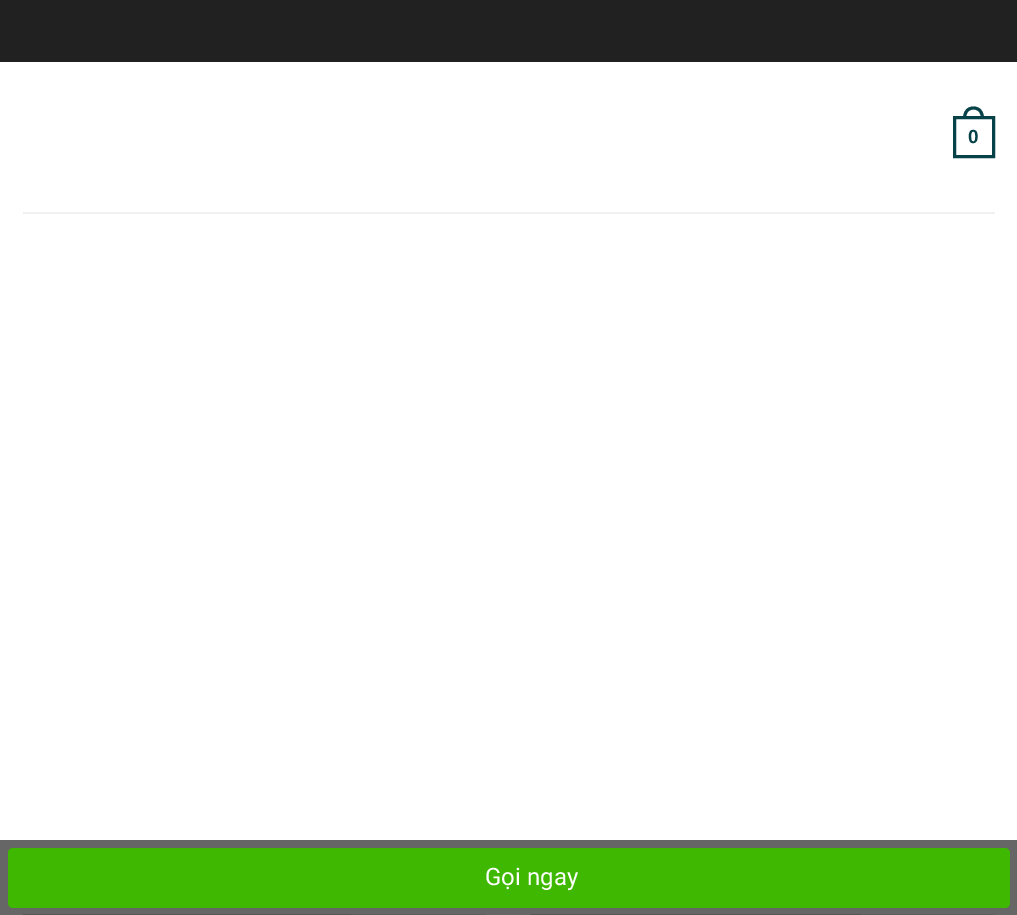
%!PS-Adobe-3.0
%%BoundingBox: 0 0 1017 915
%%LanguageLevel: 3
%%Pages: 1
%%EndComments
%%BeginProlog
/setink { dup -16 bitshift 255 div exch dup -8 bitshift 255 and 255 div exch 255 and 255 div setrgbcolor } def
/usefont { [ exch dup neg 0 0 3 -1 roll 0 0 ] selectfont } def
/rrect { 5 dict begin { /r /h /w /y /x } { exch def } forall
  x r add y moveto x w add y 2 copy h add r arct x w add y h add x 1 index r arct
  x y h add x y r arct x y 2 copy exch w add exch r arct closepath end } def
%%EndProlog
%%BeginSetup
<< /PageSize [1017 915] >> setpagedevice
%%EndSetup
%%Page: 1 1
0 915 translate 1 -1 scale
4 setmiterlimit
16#FFFFFF setink
0 0 1017 915 rectfill
16#666666 setink
0 840 1017 75 rectfill
16#212121 setink
0 0 1017 62 rectfill
16#074249 setink
3 setlinewidth
954.5 117.5 39 39 rectstroke
973.5 106.5 moveto 980.5 106.5 984 112 984 118.5 curveto 963 118.5 lineto 963 112 966.5 106.5 973.5 106.5 curveto closepath 973.5 109.5 moveto 979 109.5 981 114 981 118.5 curveto 966 118.5 lineto 966 114 968 109.5 973.5 109.5 curveto closepath eofill
/LiberationSans-Bold 19 usefont
968 143 moveto (0) show
[
    [23 212 972 2 16#F1F1F1]
    [351 914 135 1 16#5E5E5E]
    [23 914 328 1 16#555555]
    [861 914 134 1 16#5E5E5E]
    [531 914 330 1 16#555555]
] { aload pop setink rectfill } forall
16#3FB801 setink
8 848 1002 60 5 rrect fill
/Roboto-Regular 24 usefont
16#FFFFFF setink
485 885 moveto (Gọi ngay) show
showpage
%%EOF
